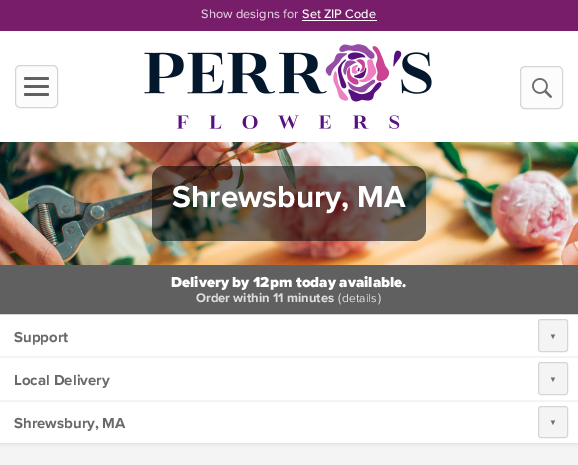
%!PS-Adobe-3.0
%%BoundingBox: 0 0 578 465
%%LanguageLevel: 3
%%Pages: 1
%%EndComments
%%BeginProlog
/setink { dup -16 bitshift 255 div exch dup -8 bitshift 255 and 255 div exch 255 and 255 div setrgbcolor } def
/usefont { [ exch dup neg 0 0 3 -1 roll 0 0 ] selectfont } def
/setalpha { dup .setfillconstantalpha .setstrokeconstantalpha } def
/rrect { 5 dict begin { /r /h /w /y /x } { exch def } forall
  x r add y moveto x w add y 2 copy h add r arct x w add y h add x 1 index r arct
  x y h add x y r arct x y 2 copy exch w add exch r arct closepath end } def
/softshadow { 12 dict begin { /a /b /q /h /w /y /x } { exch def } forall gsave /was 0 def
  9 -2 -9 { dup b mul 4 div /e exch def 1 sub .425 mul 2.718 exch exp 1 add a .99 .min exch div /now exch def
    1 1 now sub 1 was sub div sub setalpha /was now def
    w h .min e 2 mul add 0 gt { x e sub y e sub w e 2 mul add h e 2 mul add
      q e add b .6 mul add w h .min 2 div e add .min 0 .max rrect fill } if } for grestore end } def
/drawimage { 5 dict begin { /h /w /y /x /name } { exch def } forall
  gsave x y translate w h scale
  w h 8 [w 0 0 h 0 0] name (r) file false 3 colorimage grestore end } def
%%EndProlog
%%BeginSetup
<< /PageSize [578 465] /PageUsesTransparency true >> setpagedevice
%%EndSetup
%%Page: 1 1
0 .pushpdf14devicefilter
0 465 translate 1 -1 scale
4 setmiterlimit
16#F4F4F4 setink
0 0 578 465 rectfill
16#FFFFFF setink
0 31 578 111 rectfill
16#771D6A setink
0 0 578 31 rectfill
/ProximaNova-Medium 12.75 usefont
16#DDC7DA setink
201 18 moveto (Show designs for) show
16#FFFFFF setink
302 20 75 1 rectfill
302 18 moveto (Set ZIP Code) show
(img1.raw) 144 44 288 85 drawimage
16#FCFCFC setink
15.5 65.5 42 42 4.5 rrect gsave fill grestore
16#D5D5D5 setink
stroke
16#606060 setink
24 93 25 3 1.5 rrect fill
24 85 25 3 1.5 rrect fill
24 77 25 3 1.5 rrect fill
16#FCFCFC setink
520.5 66.5 42 42 4.5 rrect gsave fill grestore
16#D5D5D5 setink
stroke
(img2.raw) 532 78 20 20 drawimage
(img3.raw) 0 142 578 123 drawimage
0.54 setalpha
16#000000 setink
152 166 274 75 12 rrect fill
/ProximaNova-Bold 31.5 usefont
1 setalpha
16#FFFFFF setink
172 207 moveto (Shrewsbury, MA) show
16#606060 setink
0 265 578 49 rectfill
/ProximaNova-Black 15 usefont
16#FFFFFF setink
171 287 moveto (Delivery by 12pm today available.) show
/ProximaNova-Bold 13 usefont
16#DFDFDF setink
196 302 moveto (Order within 11 minutes) show
/ProximaNova-Regular 13 usefont
338 302 moveto (\() show
/ProximaNova-Regular 12 usefont
342 302 moveto (details) show
/ProximaNova-Regular 13 usefont
378 302 moveto (\)) show
16#0D0D0D setink
0 315 578 129 0 2 0.1 softshadow
16#FFFFFF setink
0 315 578 128 rectfill
16#D5D5D5 setink
0 314 578 1 rectfill
/ProximaNova-Bold 15 usefont
16#696969 setink
14 342 moveto (Support) show
16#F4F4F4 setink
538.5 319.5 29 32 2.5 rrect gsave fill grestore
16#D5D5D5 setink
stroke
/LiberationSans-Bold 8 usefont
16#707070 setink
549 339 moveto (▼) show
16#F4F4F4 setink
0 356 578 2 rectfill
/ProximaNova-Bold 15 usefont
16#696969 setink
14 385 moveto (Local Delivery) show
16#F4F4F4 setink
538.5 362.5 29 32 2.5 rrect gsave fill grestore
16#D5D5D5 setink
stroke
/LiberationSans-Bold 8 usefont
16#707070 setink
549 382 moveto (▼) show
16#F4F4F4 setink
0 400 578 2 rectfill
/ProximaNova-Bold 15 usefont
16#696969 setink
14 428 moveto (Shrewsbury, MA) show
16#F4F4F4 setink
538.5 406.5 29 31 2.5 rrect gsave fill grestore
16#D5D5D5 setink
stroke
/LiberationSans-Bold 8 usefont
16#707070 setink
549 425 moveto (▼) show
.poppdf14devicefilter showpage
%%EOF
